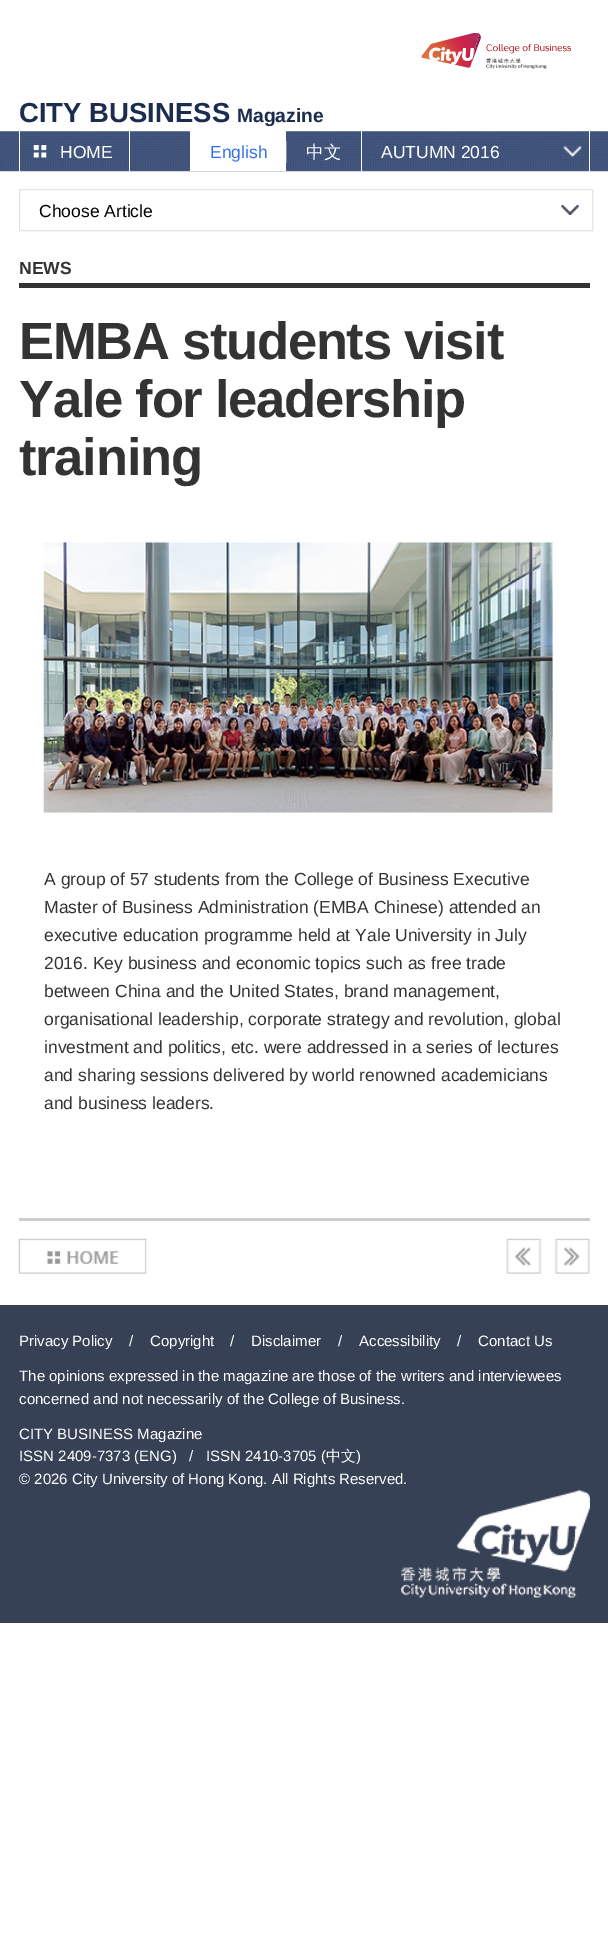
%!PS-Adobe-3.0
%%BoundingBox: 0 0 608 1958
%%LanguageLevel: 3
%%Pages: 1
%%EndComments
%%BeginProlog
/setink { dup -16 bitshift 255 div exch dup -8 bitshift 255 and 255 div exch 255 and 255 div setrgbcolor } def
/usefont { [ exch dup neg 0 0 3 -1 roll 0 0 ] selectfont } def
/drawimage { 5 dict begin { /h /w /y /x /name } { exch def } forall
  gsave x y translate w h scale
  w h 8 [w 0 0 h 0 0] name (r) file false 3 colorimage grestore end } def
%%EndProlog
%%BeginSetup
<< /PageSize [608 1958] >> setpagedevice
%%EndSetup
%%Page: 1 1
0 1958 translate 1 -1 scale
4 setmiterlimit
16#FFFFFF setink
0 0 608 1958 rectfill
(img1.raw) 421 33 150 36 drawimage
/LiberationSans-Bold 27.5 usefont
16#1C2C4F setink
19 122 moveto (CITY BUSINESS) show
/LiberationSans-Bold 19.25 usefont
237 122 moveto (Magazine) show
(img2.raw) 0 131 608 41 drawimage
16#FFFFFF setink
129 131 1 40 rectfill
19 131 1 40 rectfill
(img3.raw) 33 145 14 13 drawimage
/LiberationSans-Regular 17.5 usefont
60 158 moveto (HOME) show
190 131 96 40 rectfill
16#326FEE setink
210 158 moveto (English) show
16#848FA6 setink
286 141 1 22 rectfill
/WenQuanYiZenHei-Medium 17.5 usefont
16#FFFFFF setink
306 158 moveto (中文) show
589 131 1 40 rectfill
361 131 1 40 rectfill
/LiberationSans-Regular 17.5 usefont
381 158 moveto (AUTUMN 2016) show
(img4.raw) 563 146 19 11 drawimage
16#E4E4E4 setink
19.5 189.5 573 41 rectstroke
16#000000 setink
39 217 moveto (Choose Article) show
(img5.raw) 561 205 18 10 drawimage
16#333333 setink
19 283 571 5 rectfill
/LiberationSans-Bold 17.5 usefont
19 274 moveto (NEWS) show
/LiberationSans-Bold 52.5 usefont
19 359 moveto -1.25 0 (EMBA students visit) ashow
19 417 moveto -1.25 0 (Yale for leadership) ashow
19 475 moveto -1.25 0 (training) ashow
(img6.raw) 43 542 510 271 drawimage
/LiberationSans-Regular 17.5 usefont
[
    [(A group of 57 students from the College of Business Executive) 44 885]
    [(Master of Business Administration \(EMBA Chinese\) attended an) 44 913]
    [(executive education programme held at Yale University in July) 44 941]
    [(2016. Key business and economic topics such as free trade) 44 969]
    [(between China and the United States, brand management,) 44 997]
    [(organisational leadership, corporate strategy and revolution, global) 44 1025]
    [(investment and politics, etc. were addressed in a series of lectures) 44 1053]
    [(and sharing sessions delivered by world renowned academicians) 44 1081]
    [(and business leaders.) 44 1109]
] { aload pop moveto show } forall
16#CCCCCC setink
19 1218 571 3 rectfill
(img7.raw) 18 1238 129 36 drawimage
(img8.raw) 506 1238 36 36 drawimage
(img9.raw) 555 1238 35 36 drawimage
16#374156 setink
0 1305 608 318 rectfill
/LiberationSans-Regular 15 usefont
16#FFFFFF setink
[
    [(Privacy Policy) 19 1346]
    [(/) 129 1346]
    [(Copyright) 150 1346]
    [(/) 230 1346]
    [(Disclaimer) 251 1346]
    [(/) 338 1346]
    [(Accessibility) 359 1346]
    [(/) 457 1346]
    [(Contact Us) 478 1346]
    [(The opinions expressed in the magazine are those of the writers and interviewees) 19 1381]
    [(concerned and not necessarily of the College of Business.) 19 1404]
    [(CITY BUSINESS Magazine) 19 1439]
    [(ISSN 2409-7373 \(ENG\)   /   ISSN 2410-3705 \() 19 1461]
] { aload pop moveto show } forall
/WenQuanYiZenHei-Medium 15 usefont
326 1461 moveto (中文) show
/LiberationSans-Regular 15 usefont
356 1461 moveto (\)) show
19 1484 moveto (© 2026 City University of Hong Kong. All Rights Reserved.) show
(img10.raw) 401 1490 189 108 drawimage
showpage
%%EOF
